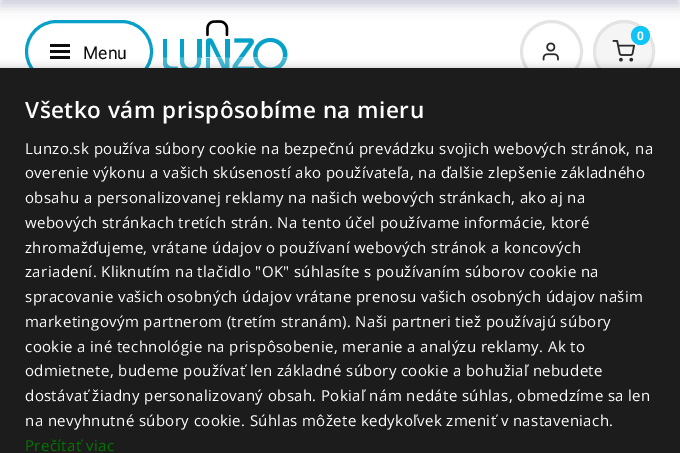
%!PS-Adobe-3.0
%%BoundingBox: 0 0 680 453
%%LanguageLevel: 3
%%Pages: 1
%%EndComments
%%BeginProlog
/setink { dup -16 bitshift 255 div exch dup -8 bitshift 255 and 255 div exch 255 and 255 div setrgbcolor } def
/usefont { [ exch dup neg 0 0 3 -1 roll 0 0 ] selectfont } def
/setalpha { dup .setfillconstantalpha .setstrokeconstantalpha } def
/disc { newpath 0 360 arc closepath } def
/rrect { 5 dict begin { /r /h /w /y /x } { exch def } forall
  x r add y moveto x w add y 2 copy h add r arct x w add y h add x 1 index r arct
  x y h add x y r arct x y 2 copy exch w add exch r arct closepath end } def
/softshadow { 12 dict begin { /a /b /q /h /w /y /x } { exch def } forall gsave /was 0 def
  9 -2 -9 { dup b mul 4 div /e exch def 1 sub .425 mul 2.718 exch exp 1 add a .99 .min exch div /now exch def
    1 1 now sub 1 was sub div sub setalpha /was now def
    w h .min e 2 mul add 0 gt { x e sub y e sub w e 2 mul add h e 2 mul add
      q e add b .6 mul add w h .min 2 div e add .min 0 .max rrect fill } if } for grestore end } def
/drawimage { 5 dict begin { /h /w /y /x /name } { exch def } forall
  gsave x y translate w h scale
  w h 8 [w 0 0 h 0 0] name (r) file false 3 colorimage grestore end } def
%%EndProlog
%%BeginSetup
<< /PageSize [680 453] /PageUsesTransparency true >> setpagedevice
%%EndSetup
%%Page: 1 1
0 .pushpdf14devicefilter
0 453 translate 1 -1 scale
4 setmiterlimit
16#FFFFFF setink
0 0 680 453 rectfill
16#E4E4E4 setink
3 setlinewidth
551.5 51.5 30 disc stroke
(img2.raw) 163 20 125 48 drawimage
16#F5F5F5 setink
594.5 21.5 59 60 29.5 rrect gsave fill grestore
16#E4E4E4 setink
stroke
16#08A0C8 setink
26.5 21.5 125 60 30 rrect stroke
16#A4A7C1 setink
0 -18 680 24 0 6 0.34 softshadow
(img1.raw) 542 42 17 19 drawimage
(img3.raw) 612 40 23 22 drawimage
16#0EC5F5 setink
640.5 35.5 9.5 disc fill
/Roboto-Bold 12 usefont
16#FEFEFE setink
637 40 moveto (0) show
16#A4A7C1 setink
0 -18 680 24 0 6 0.34 softshadow
[
    [50 44 20 3 16#0D0D0D]
    [50 50 20 3 16#0D0D0D]
    [50 56 20 3 16#0D0D0D]
] { aload pop setink rectfill } forall
/Roboto-Regular 17.5 usefont
83 59 moveto (Menu) show
16#000000 setink
1 70 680 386 0 5 0.35 softshadow
16#1C1C1C setink
0 68 680 385 rectfill
/OpenSans-SemiBold 22.5 usefont
16#FEFEFE setink
25 118 moveto 0.5 0 (Všetko vám prispôsobíme na mieru) ashow
/OpenSans-Regular 15 usefont
25 154 moveto 0.38 0 (Lunzo.sk používa súbory cookie na bezpečnú prevádzku svojich webových stránok, na) ashow
25 178 moveto 0.38 0 (overenie výkonu a vašich skúseností ako používateľa, na ďalšie zlepšenie základného) ashow
25 203 moveto 0.38 0 (obsahu a personalizovanej reklamy na našich webových stránkach, ako aj na) ashow
25 228 moveto 0.38 0 (webových stránkach tretích strán. Na tento účel používame informácie, ktoré) ashow
25 253 moveto 0.38 0 (zhromažďujeme, vrátane údajov o používaní webových stránok a koncových) ashow
25 277 moveto 0.38 0 (zariadení. Kliknutím na tlačidlo "OK" súhlasíte s používaním súborov cookie na) ashow
25 302 moveto 0.38 0 (spracovanie vašich osobných údajov vrátane prenosu vašich osobných údajov našim) ashow
25 327 moveto 0.38 0 (marketingovým partnerom \(tretím stranám\). Naši partneri tiež používajú súbory) ashow
25 352 moveto 0.38 0 (cookie a iné technológie na prispôsobenie, meranie a analýzu reklamy. Ak to) ashow
25 376 moveto 0.38 0 (odmietnete, budeme používať len základné súbory cookie a bohužiaľ nebudete) ashow
25 401 moveto 0.38 0 (dostávať žiadny personalizovaný obsah. Pokiaľ nám nedáte súhlas, obmedzíme sa len) ashow
25 426 moveto 0.38 0 (na nevyhnutné súbory cookie. Súhlas môžete kedykoľvek zmeniť v nastaveniach.) ashow
16#027500 setink
25 451 moveto 0.38 0 (Prečítať viac) ashow
.poppdf14devicefilter showpage
%%EOF
